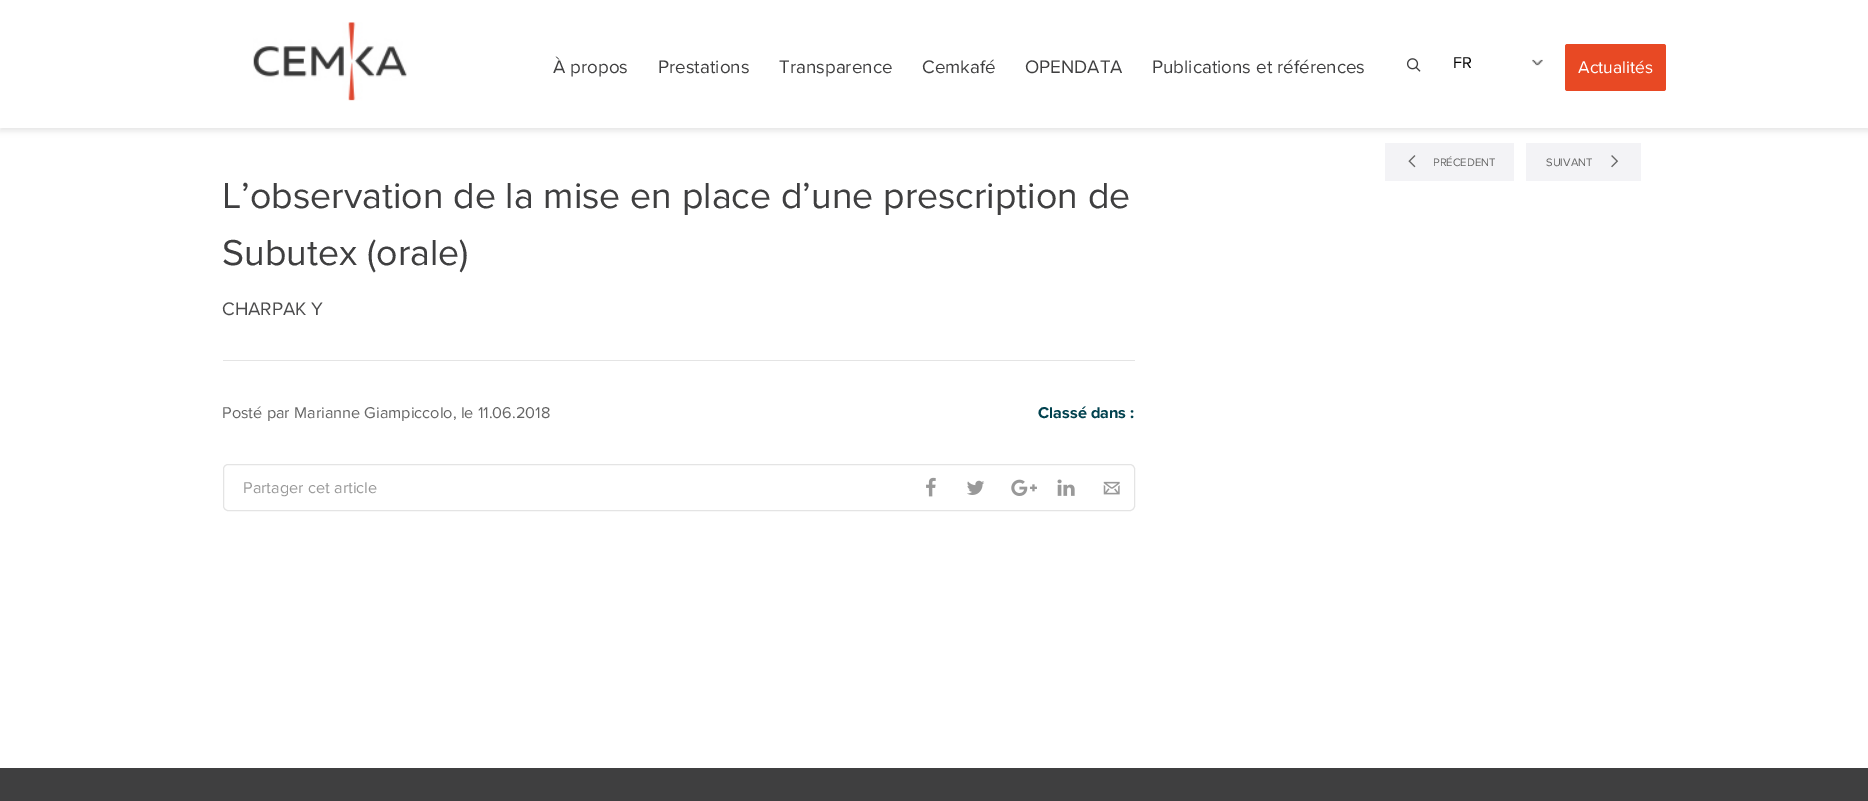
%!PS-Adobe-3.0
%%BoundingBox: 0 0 1868 801
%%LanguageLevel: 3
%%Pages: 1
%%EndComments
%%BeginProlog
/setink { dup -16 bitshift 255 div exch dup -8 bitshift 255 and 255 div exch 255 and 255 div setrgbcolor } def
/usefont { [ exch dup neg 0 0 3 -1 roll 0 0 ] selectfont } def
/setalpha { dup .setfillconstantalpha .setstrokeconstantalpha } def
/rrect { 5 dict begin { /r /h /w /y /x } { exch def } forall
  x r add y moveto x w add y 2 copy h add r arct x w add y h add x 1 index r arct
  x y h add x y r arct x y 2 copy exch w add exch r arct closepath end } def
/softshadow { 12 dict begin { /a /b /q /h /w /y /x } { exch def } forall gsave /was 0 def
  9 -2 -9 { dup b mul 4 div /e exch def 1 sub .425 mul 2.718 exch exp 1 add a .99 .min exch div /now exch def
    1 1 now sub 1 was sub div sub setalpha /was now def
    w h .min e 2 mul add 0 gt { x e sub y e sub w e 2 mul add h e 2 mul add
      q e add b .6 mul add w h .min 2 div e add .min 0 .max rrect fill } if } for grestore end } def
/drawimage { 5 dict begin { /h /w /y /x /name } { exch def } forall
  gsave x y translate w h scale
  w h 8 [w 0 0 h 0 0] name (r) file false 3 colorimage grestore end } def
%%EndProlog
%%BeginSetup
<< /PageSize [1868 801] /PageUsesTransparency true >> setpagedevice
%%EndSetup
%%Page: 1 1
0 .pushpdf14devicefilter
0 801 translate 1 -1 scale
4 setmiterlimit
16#FFFFFF setink
0 0 1868 801 rectfill
16#000000 setink
0 4 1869 127 0 3 0.1 softshadow
16#FFFFFF setink
0 0 1868 128 rectfill
(img1.raw) 253 22 154 79 drawimage
/ProximaNova-Regular 18.75 usefont
16#3F3F40 setink
[
    [(À propos) 553 73]
    [(Prestations) 658 73]
    [(Transparence) 779 73]
    [(Cemkafé) 922 73]
    [(OPENDATA) 1025 73]
    [(Publications et références) 1152 73]
] { aload pop moveto show } forall
(img2.raw) 1406 58 15 14 drawimage
(img3.raw) 1532 59 11 7 drawimage
/ProximaNova-Regular 16.25 usefont
16#000000 setink
1453 68 moveto (FR) show
16#E84924 setink
1565 44 101 47 2.5 rrect fill
/ProximaNova-Regular 17.5 usefont
16#FFFFFF setink
1578 73 moveto (Actualités) show
16#F3F3F6 setink
1385 143 129 38 rectfill
(img4.raw) 1408 155 8 13 drawimage
/ProximaNova-Regular 11.25 usefont
16#666666 setink
1433 166 moveto (PRÉCEDENT) show
16#F3F3F6 setink
1526 143 115 38 rectfill
16#666666 setink
1546 166 moveto (SUIVANT) show
(img5.raw) 1611 155 8 13 drawimage
/ProximaNova-Regular 37.5 usefont
16#3F3F40 setink
222 208 moveto (L’observation de la mise en place d’une prescription de) show
222 265 moveto (Subutex \(orale\)) show
/ProximaNova-Regular 18.75 usefont
16#4C4C4D setink
222 315 moveto (CHARPAK Y) show
16#E4E4E4 setink
223 360 912 1 rectfill
/ProximaNova-Regular 16.25 usefont
16#666666 setink
222 418 moveto (Posté par Marianne Giampiccolo, le 11.06.2018) show
/ProximaNova-Bold 16.25 usefont
16#00414E setink
1038 418 moveto (Classé dans :) show
16#E4E4E4 setink
223.5 464.5 911 46 4.5 rrect stroke
/ProximaNova-Regular 16.25 usefont
16#999999 setink
243 493 moveto (Partager cet article) show
(img6.raw) 926 477 10 20 drawimage
(img7.raw) 967 480 18 15 drawimage
(img8.raw) 1011 479 26 17 drawimage
(img9.raw) 1057 479 18 17 drawimage
(img10.raw) 1103 481 17 14 drawimage
16#3F3F40 setink
0 768 1868 33 rectfill
.poppdf14devicefilter showpage
%%EOF
